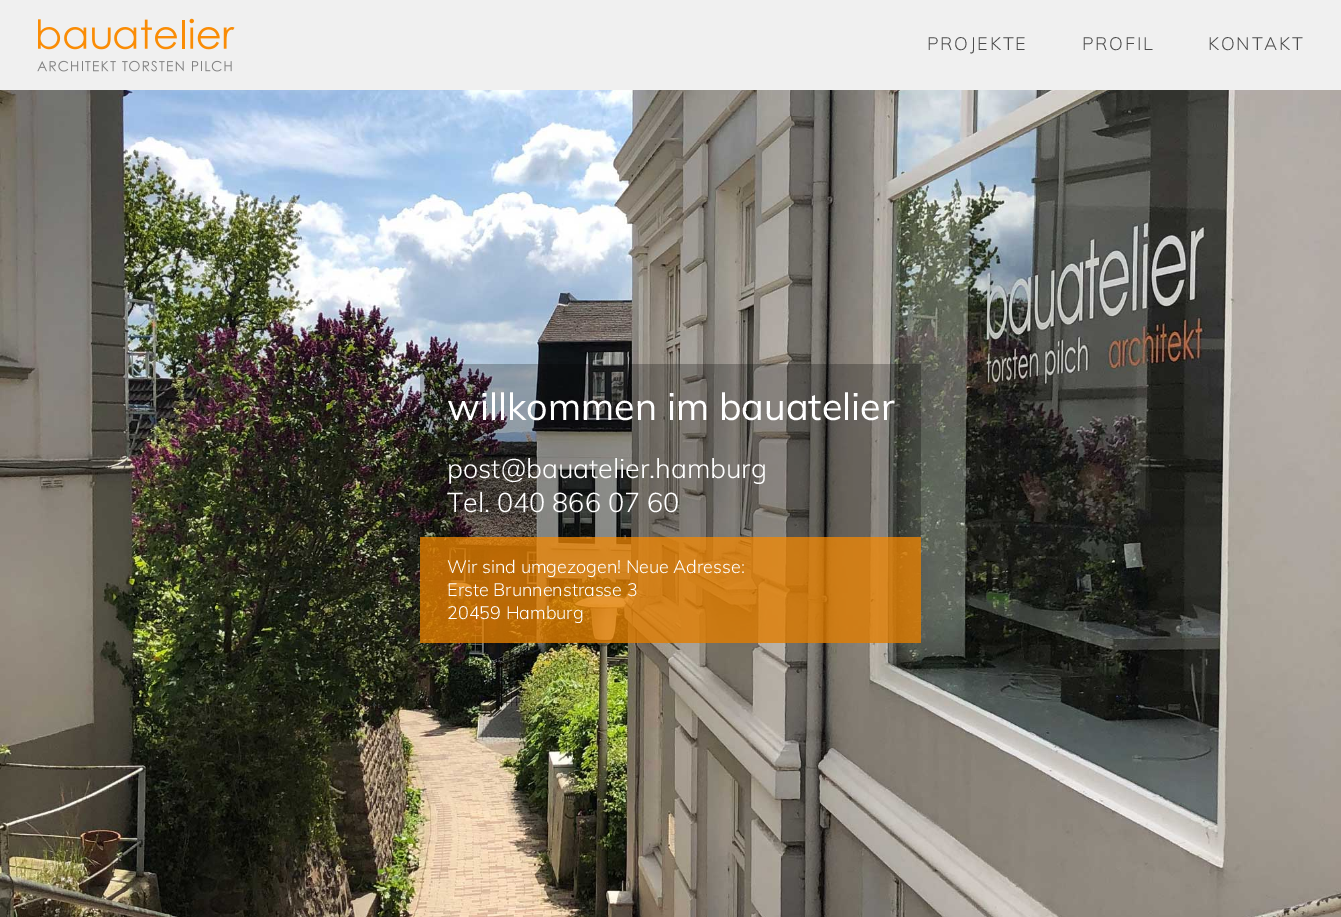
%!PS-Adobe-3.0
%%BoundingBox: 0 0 1341 917
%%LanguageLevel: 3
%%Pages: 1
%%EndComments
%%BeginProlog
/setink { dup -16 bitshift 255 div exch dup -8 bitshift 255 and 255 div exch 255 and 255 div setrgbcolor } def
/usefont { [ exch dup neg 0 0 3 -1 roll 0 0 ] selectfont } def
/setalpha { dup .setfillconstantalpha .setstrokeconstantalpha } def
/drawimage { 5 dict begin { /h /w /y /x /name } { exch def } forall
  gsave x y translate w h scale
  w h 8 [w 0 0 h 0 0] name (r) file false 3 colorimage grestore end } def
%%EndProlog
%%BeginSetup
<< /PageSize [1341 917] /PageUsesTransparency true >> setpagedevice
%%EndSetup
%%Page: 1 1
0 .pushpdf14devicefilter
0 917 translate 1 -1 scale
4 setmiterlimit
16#FFFFFF setink
0 0 1341 917 rectfill
16#F0F0F0 setink
0 0 1341 90 rectfill
(img1.raw) 37 18 198 54 drawimage
/Muli-Light 18 usefont
16#4C4C4C setink
927 50 moveto 1.75 0 (PROJEKTE) ashow
1082 50 moveto 1.75 0 (PROFIL) ashow
1208 50 moveto 1.75 0 (KONTAKT) ashow
(img2.raw) 0 90 1341 827 drawimage
0.25 setalpha
16#000000 setink
420 364 501 173 rectfill
/Muli-Regular 37.75 usefont
1 setalpha
16#FFFFFF setink
447 420 moveto (willkommen im bauatelier) show
/Muli-Light 27 usefont
447 478 moveto (post@bauatelier.hamburg) show
447 512 moveto (Tel. 040 866 07 60) show
0.8 setalpha
16#E17D00 setink
420 537 501 106 rectfill
/Muli-Light 18 usefont
1 setalpha
16#FFFFFF setink
[
    [(Wir sind umgezogen! Neue Adresse:) 447 573]
    [(Erste Brunnenstrasse 3) 447 596]
    [(20459 Hamburg) 447 619]
] { aload pop moveto show } forall
.poppdf14devicefilter showpage
%%EOF
